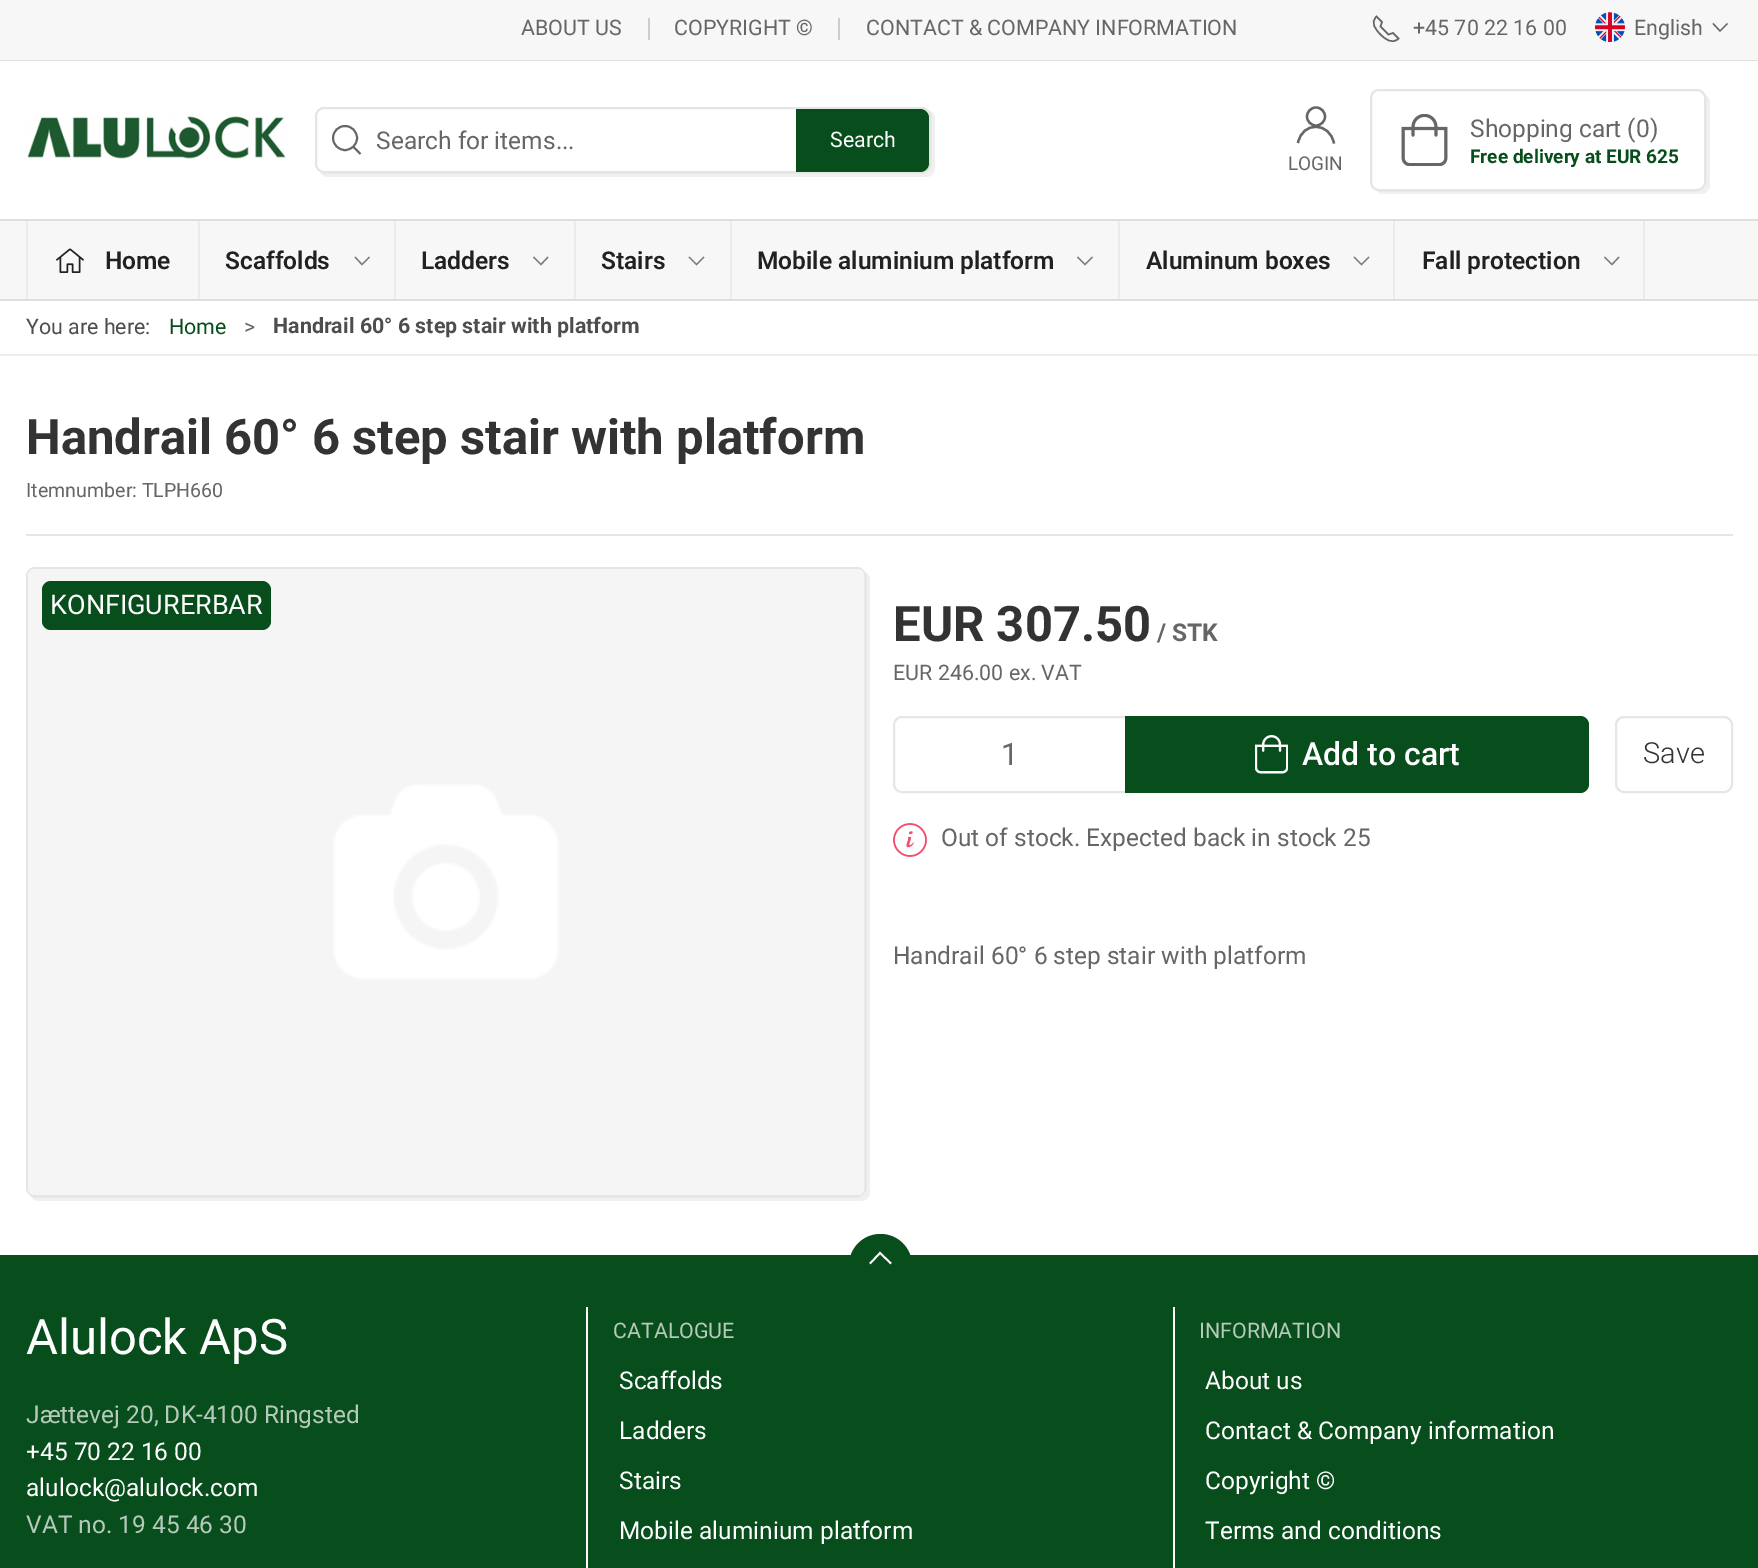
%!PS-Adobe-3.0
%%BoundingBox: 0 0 1758 1568
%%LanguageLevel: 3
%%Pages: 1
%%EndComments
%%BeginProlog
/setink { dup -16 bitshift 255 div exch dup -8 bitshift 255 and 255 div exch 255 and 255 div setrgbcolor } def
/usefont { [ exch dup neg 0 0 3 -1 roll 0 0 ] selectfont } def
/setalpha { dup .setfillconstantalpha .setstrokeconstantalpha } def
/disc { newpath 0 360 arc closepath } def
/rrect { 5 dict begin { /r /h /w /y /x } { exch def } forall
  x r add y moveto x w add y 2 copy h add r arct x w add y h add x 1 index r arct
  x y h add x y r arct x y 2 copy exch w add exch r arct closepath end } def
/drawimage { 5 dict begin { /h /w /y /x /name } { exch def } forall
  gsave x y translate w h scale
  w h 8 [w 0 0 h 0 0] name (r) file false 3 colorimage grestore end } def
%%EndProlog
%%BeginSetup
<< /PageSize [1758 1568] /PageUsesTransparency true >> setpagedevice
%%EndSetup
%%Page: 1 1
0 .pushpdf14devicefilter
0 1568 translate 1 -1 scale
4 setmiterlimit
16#FFFFFF setink
0 0 1758 1568 rectfill
16#F7F7F7 setink
0 0 1758 60 rectfill
16#DEDEDE setink
0 60 1758 1 rectfill
/Roboto-Regular 21.4 usefont
16#666666 setink
521 35 moveto (ABOUT US) show
16#CCCCCC setink
648 18 2 22 rectfill
16#666666 setink
674 35 moveto (COPYRIGHT ©) show
16#CCCCCC setink
838 18 2 22 rectfill
16#666666 setink
866 35 moveto (CONTACT & COMPANY INFORMATION) show
1.5 setlinewidth
1380.5 34.5 moveto 1385 39 1392.5 45 1398.5 38.5 curveto 1393 33 lineto 1388.5 34.5 lineto 1380.5 26.5 lineto 1382 22 lineto 1376.5 16.5 lineto 1370 22.5 1375.5 29.5 1380.5 34.5 curveto stroke
1413 35 moveto (+45 70 22 16 00) show
(img1.raw) 1595 12 30 30 drawimage
1634 35 moveto (English) show
1.3 setlinewidth
1727.5 23.5 moveto 1720 31 lineto 1713 23.5 lineto stroke
(img2.raw) 27 116 259 43 drawimage
16#F0F0F0 setink
320 173 moveto 322 175 325 177 328 177 curveto 926 177 lineto 931 177 935 173 935 168 curveto 935 119 lineto 935 115 933 112 930 111 curveto 930 112 931 114 931 116 curveto 931 164 lineto 931 169 927 173 922 173 curveto 324 173 lineto closepath fill
0.1 setalpha
16#000000 setink
2 setlinewidth
316 108 614 64 8 rrect stroke
1 setalpha
16#666666 setink
1.9 setlinewidth
345 138 12 disc stroke
353.5 147 moveto 360.5 154 lineto closepath stroke
/Roboto-Regular 24.5 usefont
376 149 moveto (Search for items...) show
16#084D1C setink
796 109 moveto 920 109 lineto 925 109 929 113 929 118 curveto 929 163 lineto 929 168 925 172 920 172 curveto 796 172 lineto closepath fill
/Roboto-Regular 21.4 usefont
16#FFFFFF setink
830 147 moveto (Search) show
16#666666 setink
2.3 setlinewidth
1316 116.5 9 disc stroke
1298 143 moveto 1302 121 1330 121.5 1334 143.5 curveto stroke
/Roboto-Regular 19 usefont
1288 170 moveto (LOGIN) show
16#F0F0F0 setink
1376 190 moveto 1377 192 1380 194 1383 194 curveto 1701 194 lineto 1706 194 1710 190 1710 185 curveto 1710 102 lineto 1710 99 1708 96 1705 94 curveto 1706 98 lineto 1706 182 lineto 1706 187 1702 191 1698 191 curveto 1379 191 lineto closepath fill
16#FFFFFF setink
1370 89 336 102 9 rrect fill
0.1 setalpha
16#000000 setink
2 setlinewidth
1371 90 334 100 8 rrect stroke
1 setalpha
(img3.raw) 1401 114 47 52 drawimage
/Roboto-Regular 24.5 usefont
16#666666 setink
1470 137 moveto (Shopping cart \(0\)) show
/Roboto-Bold 19 usefont
16#084D1C setink
1470 163 moveto (Free delivery at EUR 625) show
[
    [0 221 1758 78 16#F7F7F7]
    [0 219 1758 2 16#DEDEDE]
    [0 299 1758 2 16#DEDEDE]
    [26 221 2 78 16#EBEBEB]
    [198 221 2 78 16#EBEBEB]
] { aload pop setink rectfill } forall
(img4.raw) 56 248 28 25 drawimage
/Roboto-SemiBold 24.5 usefont
16#212121 setink
105 269 moveto (Home) show
16#EBEBEB setink
394 221 2 78 rectfill
16#212121 setink
225 269 moveto (Scaffolds) show
16#7C7C7C setink
1.3 setlinewidth
369.5 257 moveto 362 264.5 lineto 355 257 lineto stroke
16#EBEBEB setink
574 221 2 78 rectfill
16#212121 setink
421 269 moveto (Ladders) show
16#7C7C7C setink
548 257 moveto 541 264.5 lineto 533.5 257 lineto stroke
16#EBEBEB setink
730 221 2 78 rectfill
16#212121 setink
601 269 moveto (Stairs) show
16#7C7C7C setink
704 257 moveto 696.5 264.5 lineto 689 257 lineto stroke
16#EBEBEB setink
1118 221 2 78 rectfill
16#212121 setink
757 269 moveto (Mobile aluminium platform) show
16#7C7C7C setink
1092.5 257 moveto 1085 264.5 lineto 1077.5 257 lineto stroke
16#EBEBEB setink
1393 221 2 78 rectfill
16#212121 setink
1146 269 moveto (Aluminum boxes) show
16#7C7C7C setink
1369 257 moveto 1361.5 264.5 lineto 1354 257 lineto stroke
16#EBEBEB setink
1643 221 2 78 rectfill
16#212121 setink
1422 269 moveto (Fall protection) show
16#7C7C7C setink
1619 257 moveto 1612 264.5 lineto 1604.5 257 lineto stroke
16#ECECEC setink
0 354 1758 2 rectfill
/Roboto-Regular 21.4 usefont
16#4D4D4D setink
26 334 moveto (You are here:) show
16#084D1C setink
169 334 moveto (Home) show
16#666666 setink
244 334 moveto (>) show
/Roboto-Bold 21.4 usefont
16#4D4D4D setink
273 333 moveto (Handrail 60° 6 step stair with platform) show
/Roboto-Bold 49 usefont
16#333333 setink
26 454 moveto (Handrail 60° 6 step stair with platform) show
/Roboto-Regular 19.6 usefont
16#666666 setink
26 497 moveto (Itemnumber: TLPH660) show
16#E6E6E6 setink
26 534 1707 2 rectfill
16#F0F0F0 setink
31 1196 moveto 32 1199 35 1201 39 1201 curveto 861 1201 lineto 866 1201 870 1197 870 1192 curveto 870 580 lineto 870 577 868 574 866 572 curveto 866 576 lineto 866 1188 lineto 866 1193 862 1197 858 1197 curveto 35 1197 lineto 34 1197 32 1197 31 1196 curveto closepath fill
0.1 setalpha
16#000000 setink
2 setlinewidth
27 568 838 628 8 rrect stroke
1 setalpha
(img5.raw) 28 569 837 626 drawimage
16#084D1C setink
42 581 229 49 9 rrect fill
/Roboto-Regular 27 usefont
16#FFFFFF setink
50 614 moveto (KONFIGURERBAR) show
/Roboto-Bold 49 usefont
16#333333 setink
893 641 moveto (EUR 307.50) show
/Roboto-Bold 24.5 usefont
16#666666 setink
1157 641 moveto (/ STK) show
/Roboto-Regular 21.4 usefont
893 680 moveto (EUR 246.00 ex. VAT) show
16#E6E6E6 setink
902 717 moveto 1126 717 lineto 1126 792 lineto 902 792 lineto 897.5 792 894 788.5 894 784 curveto 894 725 lineto 894 720.5 897.5 717 902 717 curveto closepath stroke
/Roboto-Regular 31 usefont
16#666666 setink
1001 765 moveto (1) show
16#084D1C setink
1125 716 moveto 1580 716 lineto 1585 716 1589 720 1589 725 curveto 1589 784 lineto 1589 789 1585 793 1580 793 curveto 1125 793 lineto closepath fill
(img6.raw) 1255 735 33 39 drawimage
/Roboto-Medium 32 usefont
16#FFFFFF setink
1302 765 moveto (Add to cart) show
16#E6E6E6 setink
1616 717 116 75 8 rrect stroke
/Roboto-Light 29 usefont
16#333333 setink
1643 763 moveto (Save) show
(img7.raw) 893 823 34 34 drawimage
/Roboto-Regular 24.5 usefont
16#666666 setink
941 846 moveto (Out of stock. Expected back in stock 25) show
893 964 moveto (Handrail 60° 6 step stair with platform) show
16#084D1C setink
0 1255 1758 313 rectfill
880.5 1265.5 31.5 disc fill
16#FFFFFF setink
1.8 setlinewidth
870 1263.5 moveto 880 1253 lineto 891 1263.5 lineto stroke
/Roboto-Regular 49 usefont
26 1354 moveto (Alulock ApS) show
/Roboto-Regular 24.5 usefont
16#B5CABB setink
26 1423 moveto (Jættevej 20, DK-4100 Ringsted) show
16#FFFFFF setink
26 1460 moveto (+45 70 22 16 00) show
26 1496 moveto (alulock@alulock.com) show
16#B5CABB setink
26 1533 moveto (VAT no. 19 45 46 30) show
16#FAF8F8 setink
586 1307 2 261 rectfill
/Roboto-Regular 21.4 usefont
16#B5CABB setink
613 1338 moveto (CATALOGUE) show
/Roboto-Regular 24.5 usefont
16#FFFFFF setink
[
    [(Scaffolds) 619 1389]
    [(Ladders) 619 1439]
    [(Stairs) 619 1489]
    [(Mobile aluminium platform) 619 1539]
] { aload pop moveto show } forall
16#FAF8F8 setink
1173 1307 2 261 rectfill
/Roboto-Regular 21.4 usefont
16#B5CABB setink
1199 1338 moveto (INFORMATION) show
/Roboto-Regular 24.5 usefont
16#FFFFFF setink
[
    [(About us) 1205 1389]
    [(Contact & Company information) 1205 1439]
    [(Copyright ©) 1205 1489]
    [(Terms and conditions) 1205 1539]
] { aload pop moveto show } forall
.poppdf14devicefilter showpage
%%EOF
